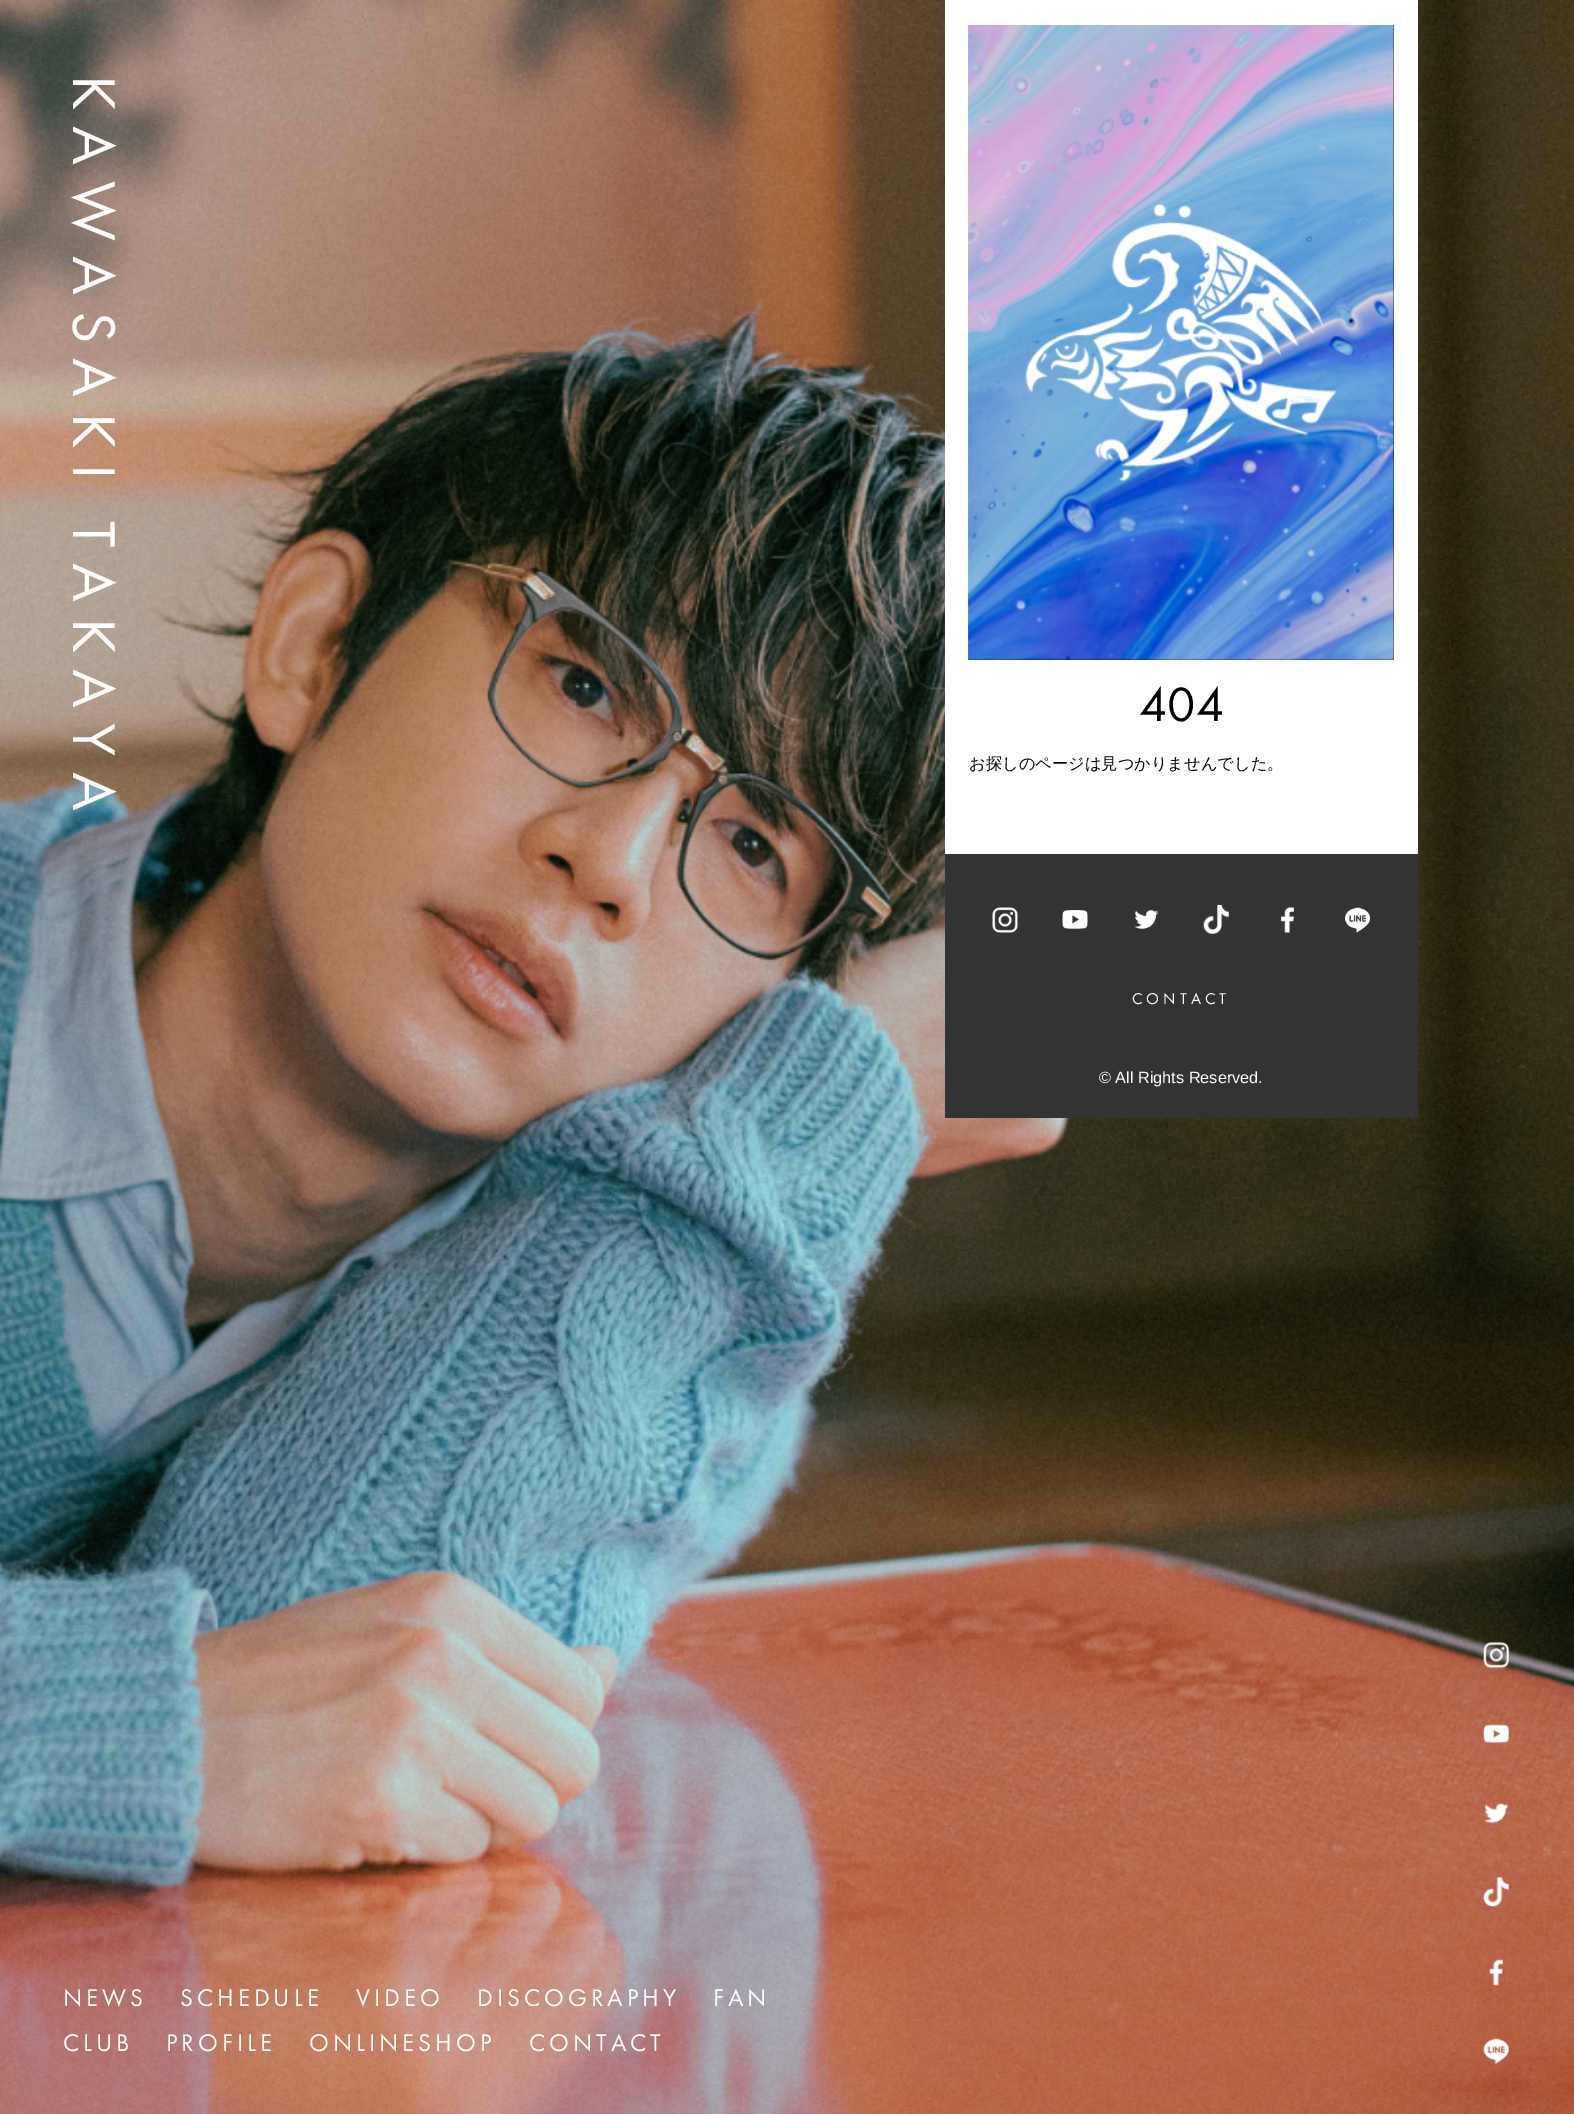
%!PS-Adobe-3.0
%%BoundingBox: 0 0 1574 2114
%%LanguageLevel: 3
%%Pages: 1
%%EndComments
%%BeginProlog
/setink { dup -16 bitshift 255 div exch dup -8 bitshift 255 and 255 div exch 255 and 255 div setrgbcolor } def
/usefont { [ exch dup neg 0 0 3 -1 roll 0 0 ] selectfont } def
/drawimage { 5 dict begin { /h /w /y /x /name } { exch def } forall
  gsave x y translate w h scale
  w h 8 [w 0 0 h 0 0] name (r) file false 3 colorimage grestore end } def
%%EndProlog
%%BeginSetup
<< /PageSize [1574 2114] >> setpagedevice
%%EndSetup
%%Page: 1 1
0 2114 translate 1 -1 scale
4 setmiterlimit
16#FFFFFF setink
0 0 1574 2114 rectfill
(img1.raw) 0 0 1574 2114 drawimage
/FuturaPT-Regular 62.5 usefont
gsave 73 75 translate 90 rotate 0 0 moveto -4 0 32 15.6 0 (KAWASAKI TAKAYA) awidthshow grestore
/FuturaPT-Regular 25 usefont
63 2006 moveto 4 0 (NEWS) ashow
180 2006 moveto 4 0 (SCHEDULE) ashow
356 2006 moveto 4 0 (VIDEO) ashow
477 2006 moveto 4 0 (DISCOGRAPHY) ashow
713 2006 moveto 4 0 (FAN) ashow
63 2051 moveto 4 0 (CLUB) ashow
166 2051 moveto 4 0 (PROFILE) ashow
309 2051 moveto 4 0 (ONLINESHOP) ashow
529 2051 moveto 4 0 (CONTACT) ashow
(img2.raw) 1483 1642 26 27 drawimage
(img3.raw) 1483 1724 26 20 drawimage
(img4.raw) 1484 1803 25 21 drawimage
(img5.raw) 1483 1877 26 30 drawimage
(img6.raw) 1489 1959 14 27 drawimage
(img7.raw) 1483 2038 26 27 drawimage
945 0 473 854 rectfill
(img8.raw) 968 25 1 635 drawimage
(img9.raw) 968 25 1 635 drawimage
16#000000 setink
969 25 425 635 rectfill
(img10.raw) 969 25 425 635 drawimage
/FuturaPT-Regular 50 usefont
1139 721 moveto (404) show
/WenQuanYiZenHei-Medium 16.25 usefont
969 769 moveto (お探しのページは見つかりませんでした。) show
16#333333 setink
945 854 473 264 rectfill
(img11.raw) 992 907 26 26 drawimage
(img12.raw) 1062 910 26 19 drawimage
(img13.raw) 1134 910 25 19 drawimage
(img14.raw) 1203 905 26 29 drawimage
(img15.raw) 1281 907 13 26 drawimage
(img16.raw) 1345 907 25 26 drawimage
/FuturaPT-Regular 16.25 usefont
16#FFFFFF setink
1132 1004 moveto 4 0 (CONTACT) ashow
/LiberationSans-Regular 16.25 usefont
1099 1083 moveto (© All Rights Reserved.) show
showpage
%%EOF
